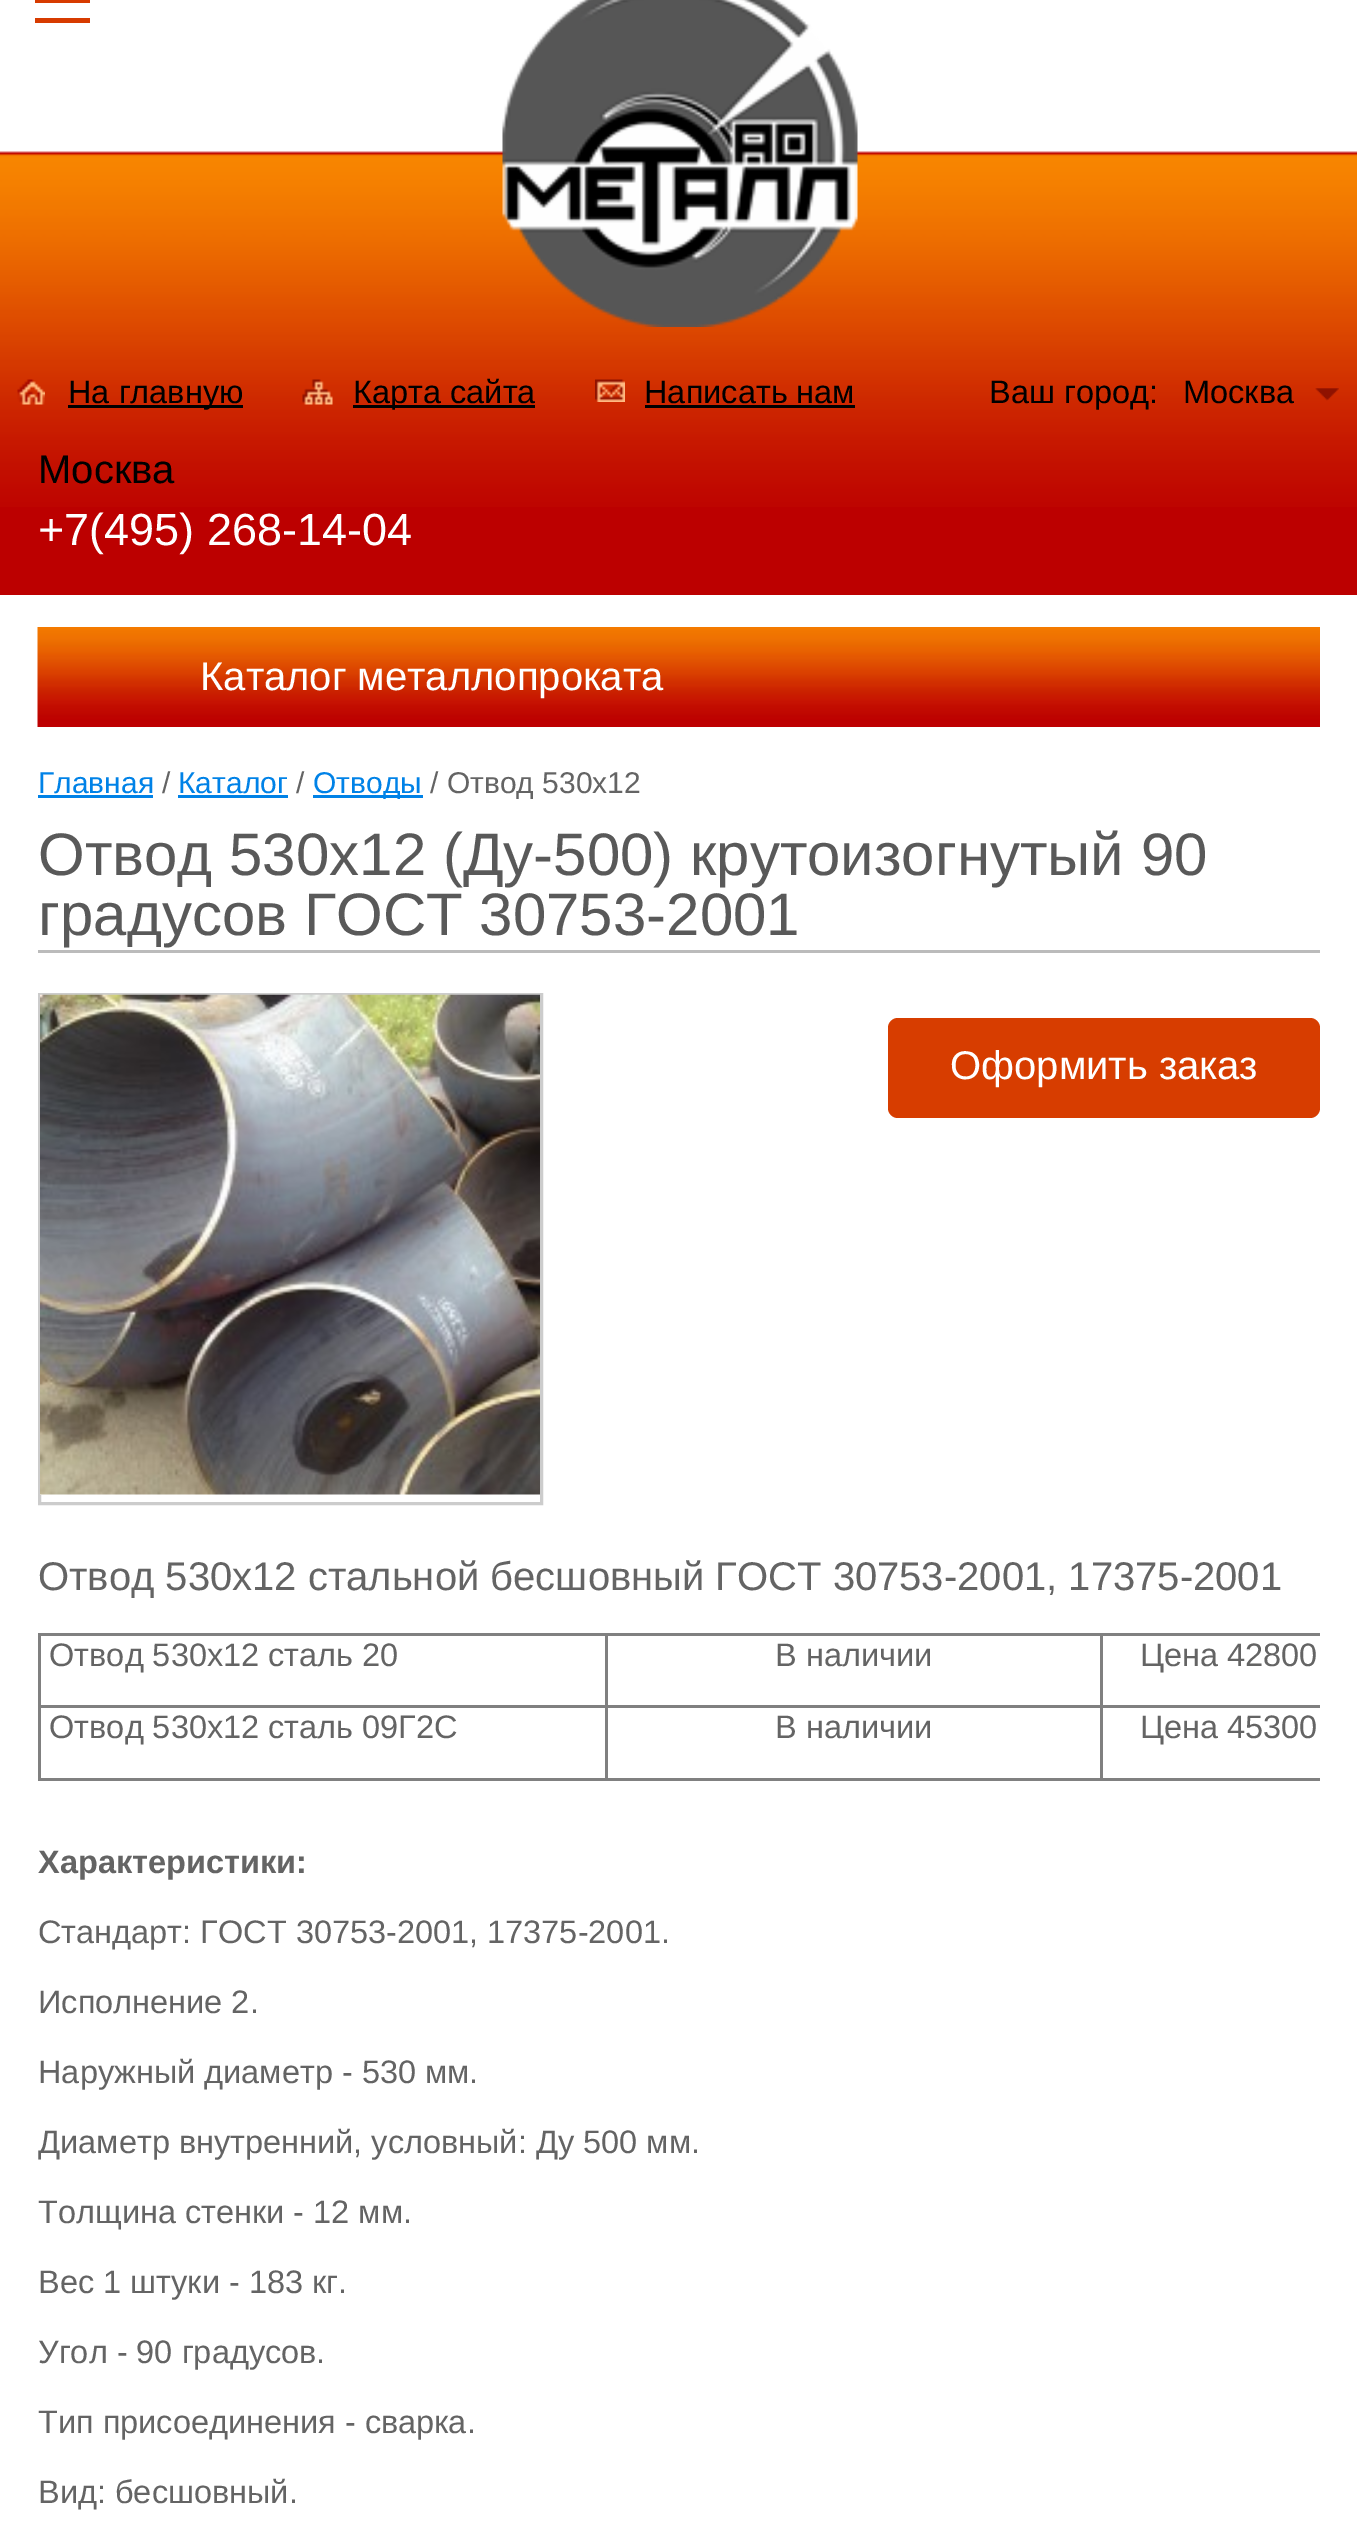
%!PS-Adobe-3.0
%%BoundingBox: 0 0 1357 2543
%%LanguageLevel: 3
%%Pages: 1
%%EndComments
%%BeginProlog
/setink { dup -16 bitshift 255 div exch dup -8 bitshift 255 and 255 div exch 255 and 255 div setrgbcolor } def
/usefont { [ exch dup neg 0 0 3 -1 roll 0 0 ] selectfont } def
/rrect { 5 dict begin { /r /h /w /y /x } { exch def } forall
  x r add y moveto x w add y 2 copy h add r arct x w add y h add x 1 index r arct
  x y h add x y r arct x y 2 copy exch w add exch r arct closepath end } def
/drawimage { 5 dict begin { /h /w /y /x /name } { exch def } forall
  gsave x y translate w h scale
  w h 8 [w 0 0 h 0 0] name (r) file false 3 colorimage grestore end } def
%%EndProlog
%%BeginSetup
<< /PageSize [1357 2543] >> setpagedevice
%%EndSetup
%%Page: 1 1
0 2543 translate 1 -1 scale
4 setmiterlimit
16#FFFFFF setink
0 0 1357 2543 rectfill
16#BC0000 setink
0 507 1357 88 rectfill
(img1.raw) 0 0 1357 507 drawimage
16#D73B00 setink
35 0 55 3 rectfill
35 18 55 5 rectfill
(img2.raw) 502 0 356 327 drawimage
(img3.raw) 17 379 28 26 drawimage
16#000000 setink
68 405 175 3 rectfill
/LiberationSans-Regular 32.5 usefont
68 403 moveto (На главную) show
(img4.raw) 302 379 31 26 drawimage
353 405 182 3 rectfill
353 403 moveto (Карта сайта) show
(img5.raw) 595 379 30 23 drawimage
644 403 moveto (Написать нам) show
645 405 210 3 rectfill
989 403 moveto (Ваш город:) show
1183 403 moveto (Москва) show
(img6.raw) 1315 388 24 13 drawimage
/LiberationSans-Regular 40 usefont
38 483 moveto (Москва) show
/LiberationSans-Regular 45 usefont
16#FFFFFF setink
38 545 moveto (+7\(495\) 268-14-04) show
(img7.raw) 37 627 1283 100 drawimage
/LiberationSans-Regular 40 usefont
200 690 moveto (Каталог металлопроката) show
/LiberationSans-Regular 30 usefont
16#0082E7 setink
38 793 moveto (Главная) show
38 795 115 3 rectfill
16#646464 setink
162 793 moveto (/) show
16#0082E7 setink
178 793 moveto (Каталог) show
178 795 110 3 rectfill
16#646464 setink
296 793 moveto (/) show
16#0082E7 setink
313 795 110 3 rectfill
313 793 moveto (Отводы) show
16#646464 setink
430 793 moveto (/ Отвод 530х12) show
16#BBBBBB setink
38 950 1282 3 rectfill
/LiberationSans-Regular 60 usefont
16#595959 setink
38 875 moveto (Отвод 530х12 \(Ду-500\) крутоизогнутый 90) show
38 935 moveto (градусов ГОСТ 30753-2001) show
16#CCCCCC setink
3 setlinewidth
39.5 994.5 502 509 rectstroke
16#FFFFFF setink
40 1494 1 1 rectfill
(img8.raw) 40 994 500 501 drawimage
16#D73D00 setink
888 1018 432 100 10 rrect fill
/LiberationSans-Regular 40 usefont
16#FFFFFF setink
950 1079 moveto (Оформить заказ) show
16#646464 setink
38 1590 moveto (Отвод 530х12 стальной бесшовный ГОСТ 30753-2001, 17375-2001) show
[
    [38 1633 1282 3 16#808080]
    [38 1778 1282 3 16#808080]
    [38 1633 3 147 16#808080]
] { aload pop setink rectfill } forall
/LiberationSans-Regular 32.5 usefont
16#646464 setink
49 1666 moveto (Отвод 530х12 сталь 20) show
[
    [1100 1705 220 3 16#808080]
    [1100 1705 3 75 16#808080]
    [605 1705 498 3 16#808080]
    [605 1705 3 75 16#808080]
    [38 1705 570 3 16#808080]
    [605 1633 3 75 16#808080]
] { aload pop setink rectfill } forall
16#646464 setink
775 1666 moveto (В наличии) show
16#808080 setink
1100 1633 3 75 rectfill
16#646464 setink
[
    [(Цена 42800) 1140 1666]
    [(Отвод 530х12 сталь 09Г2С) 49 1738]
    [(В наличии) 775 1738]
    [(Цена 45300) 1140 1738]
] { aload pop moveto show } forall
/LiberationSans-Bold 32.5 usefont
38 1873 moveto (Характеристики:) show
/LiberationSans-Regular 32.5 usefont
[
    [(Стандарт: ГОСТ 30753-2001, 17375-2001.) 38 1943]
    [(Исполнение 2.) 38 2013]
    [(Наружный диаметр - 530 мм.) 38 2083]
] { aload pop moveto show } forall
gsave
38 993 1282 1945 rectclip
38 2153 moveto (Диаметр внутренний, условный: Ду 500 мм.) show
grestore
[
    [(Толщина стенки - 12 мм.) 38 2223]
    [(Вес 1 штуки - 183 кг.) 38 2293]
    [(Угол - 90 градусов.) 38 2363]
    [(Тип присоединения - сварка.) 38 2433]
    [(Вид: бесшовный.) 38 2503]
] { aload pop moveto show } forall
showpage
%%EOF
